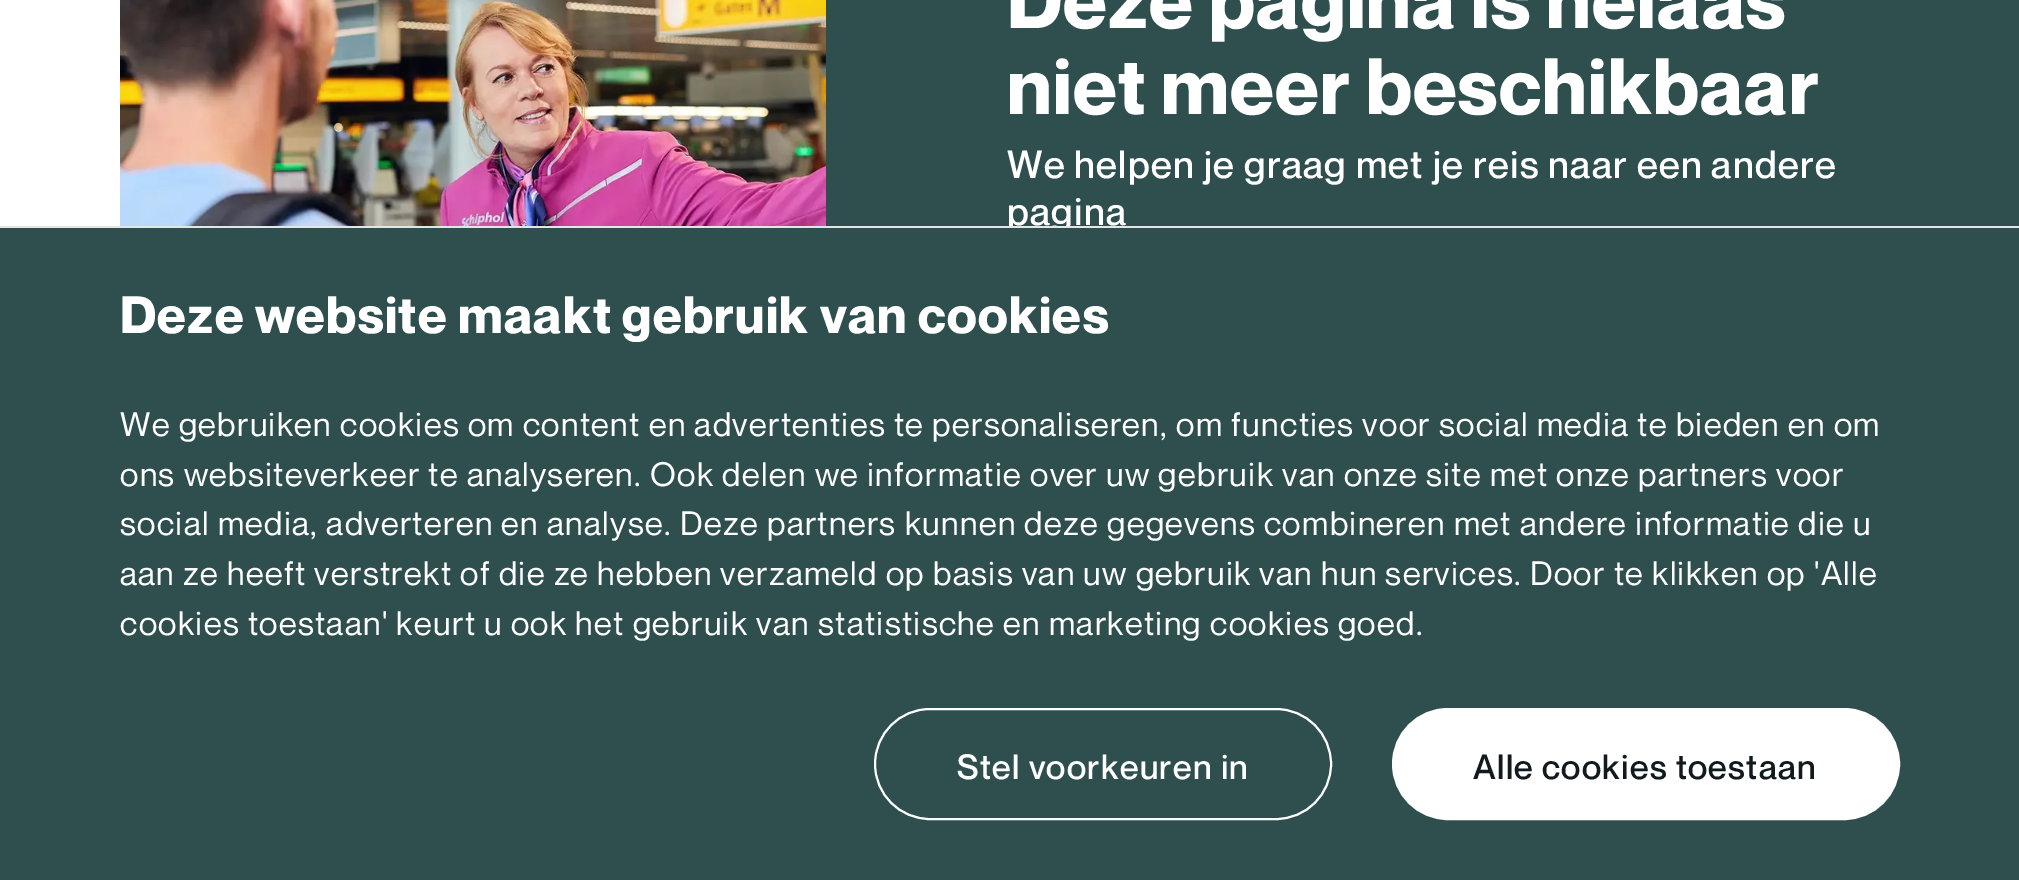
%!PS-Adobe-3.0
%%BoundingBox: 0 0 2019 880
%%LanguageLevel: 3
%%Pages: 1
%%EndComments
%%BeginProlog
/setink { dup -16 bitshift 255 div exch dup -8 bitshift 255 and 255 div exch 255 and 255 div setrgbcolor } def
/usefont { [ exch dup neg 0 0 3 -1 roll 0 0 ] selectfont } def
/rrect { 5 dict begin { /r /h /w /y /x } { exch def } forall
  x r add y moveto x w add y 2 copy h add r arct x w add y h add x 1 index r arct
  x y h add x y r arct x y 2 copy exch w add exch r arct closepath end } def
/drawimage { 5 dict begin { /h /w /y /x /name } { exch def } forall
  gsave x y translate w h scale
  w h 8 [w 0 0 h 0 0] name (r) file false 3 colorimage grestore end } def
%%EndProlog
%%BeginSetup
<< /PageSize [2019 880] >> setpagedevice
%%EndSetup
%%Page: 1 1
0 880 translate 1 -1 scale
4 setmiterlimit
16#FFFFFF setink
0 0 2019 880 rectfill
16#2F4F4F setink
826 0 1193 226 rectfill
(img1.raw) 120 0 706 226 drawimage
/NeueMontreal-Bold 78 usefont
16#FFFFFF setink
1007 28 moveto 1.33 0 (Deze pagina is helaas) ashow
1007 114 moveto 1.33 0 (niet meer beschikbaar) ashow
/NeueMontreal-Medium 38.3 usefont
1007 178 moveto 1.33 0 (We helpen je graag met je reis naar een andere) ashow
1007 225 moveto 1.33 0 (pagina) ashow
16#2F4F4F setink
0 228 2019 652 rectfill
16#E4E6E4 setink
0 226 2019 2 rectfill
/NeueMontreal-Bold 51.25 usefont
16#FFFFFF setink
120 333 moveto 1.33 0 (Deze website maakt gebruik van cookies) ashow
/NeueMontreal-Regular 33.15 usefont
120 436 moveto 1.33 0 (We gebruiken cookies om content en advertenties te personaliseren, om functies voor social media te bieden en om) ashow
120 486 moveto 1.33 0 (ons websiteverkeer te analyseren. Ook delen we informatie over uw gebruik van onze site met onze partners voor) ashow
120 535 moveto 1.33 0 (social media, adverteren en analyse. Deze partners kunnen deze gegevens combineren met andere informatie die u) ashow
120 585 moveto 1.33 0 (aan ze heeft verstrekt of die ze hebben verzameld op basis van uw gebruik van hun services. Door te klikken op 'Alle) ashow
120 635 moveto 1.33 0 (cookies toestaan' keurt u ook het gebruik van statistische en marketing cookies goed.) ashow
2 setlinewidth
875 709 456 110 55 rrect stroke
/NeueMontreal-Medium 34.25 usefont
957 779 moveto 1.33 0 (Stel voorkeuren in) ashow
1393 709 506 110 55 rrect gsave fill grestore
stroke
16#121A1D setink
1473 779 moveto 1.33 0 (Alle cookies toestaan) ashow
showpage
%%EOF
